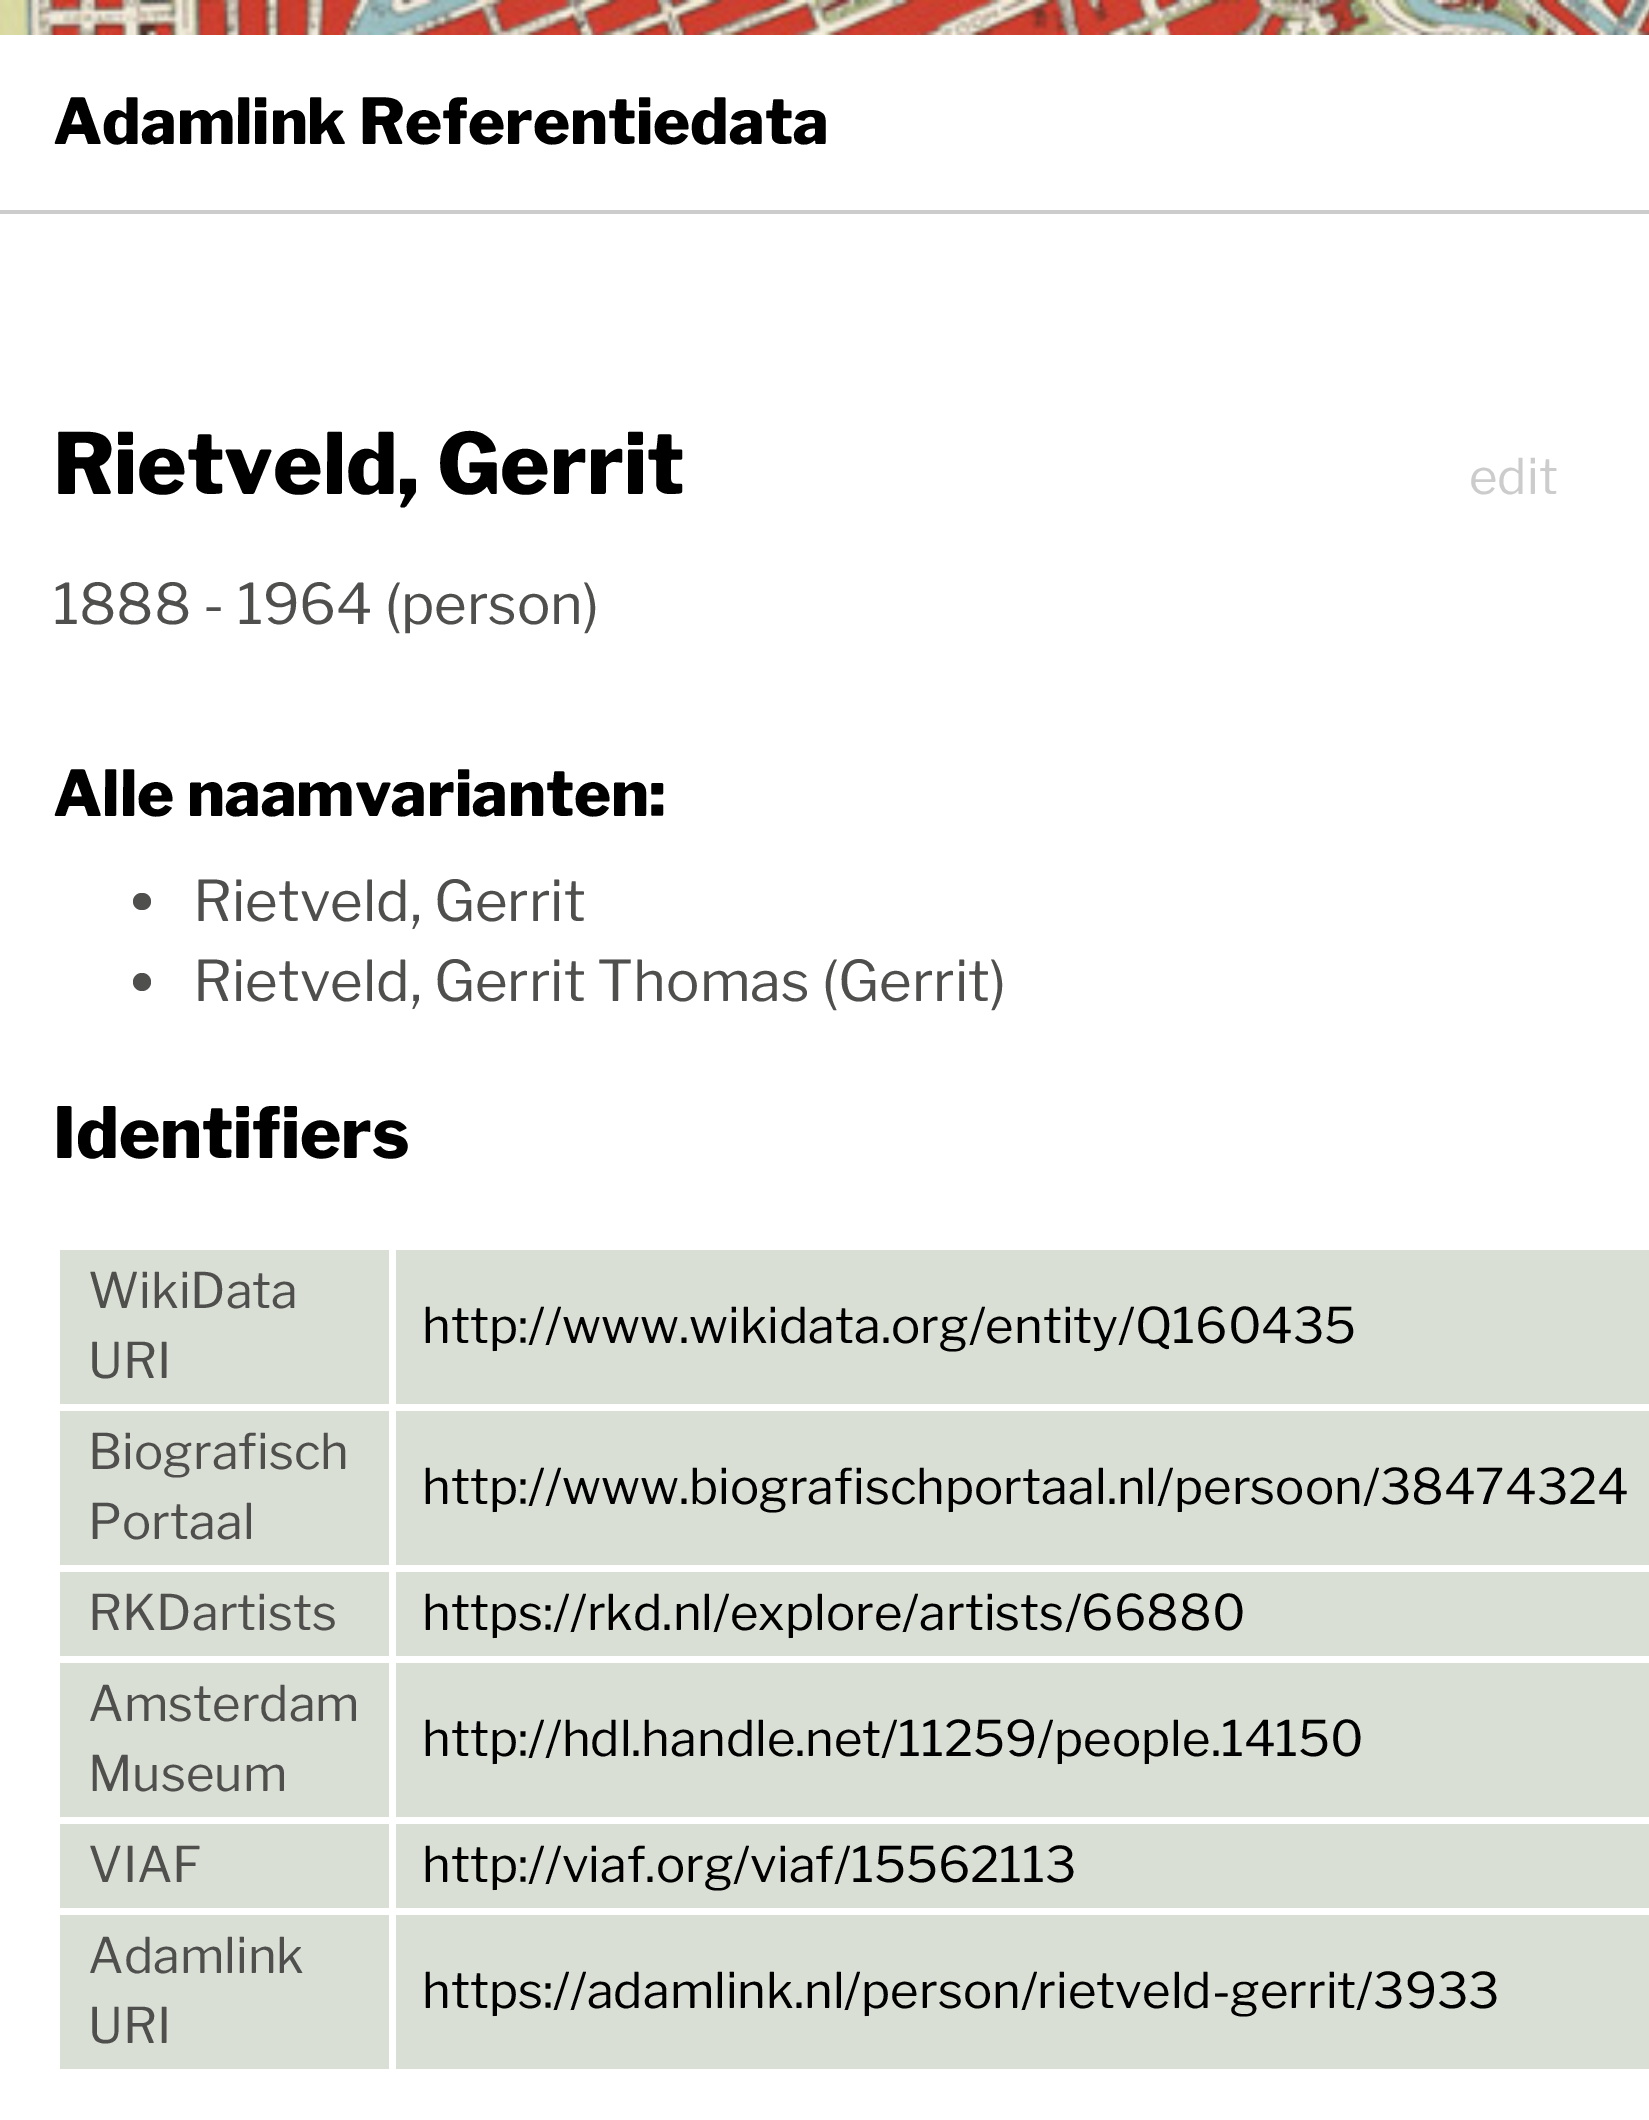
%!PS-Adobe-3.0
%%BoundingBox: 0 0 1649 2120
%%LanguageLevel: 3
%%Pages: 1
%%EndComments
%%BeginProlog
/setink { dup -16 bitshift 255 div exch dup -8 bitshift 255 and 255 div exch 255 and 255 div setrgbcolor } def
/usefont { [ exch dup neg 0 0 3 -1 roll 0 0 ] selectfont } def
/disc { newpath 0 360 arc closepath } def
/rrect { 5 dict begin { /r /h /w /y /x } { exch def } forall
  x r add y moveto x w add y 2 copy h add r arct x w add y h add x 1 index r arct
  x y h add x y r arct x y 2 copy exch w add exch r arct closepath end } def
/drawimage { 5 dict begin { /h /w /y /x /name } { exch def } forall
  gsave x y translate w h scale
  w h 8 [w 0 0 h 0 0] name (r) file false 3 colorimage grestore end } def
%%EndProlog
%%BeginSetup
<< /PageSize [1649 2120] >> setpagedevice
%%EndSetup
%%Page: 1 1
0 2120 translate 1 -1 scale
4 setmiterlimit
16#FFFFFF setink
0 0 1649 2120 rectfill
16#CCCCCC setink
0 210 1649 4 rectfill
(img1.raw) 0 0 1649 35 drawimage
/LibreFranklin-ExtraBold 63 usefont
16#000000 setink
53 144 moveto (Adamlink Referentiedata) show
/LibreFranklin-ExtraBold 84 usefont
53 494 moveto (Rietveld, Gerrit) show
/LibreFranklin-Regular 49 usefont
16#CCCCCC setink
1469 494 moveto (edit) show
/LibreFranklin-Regular 56 usefont
16#4F4F4E setink
53 624 moveto (1888 - 1964 \(person\)) show
/LibreFranklin-ExtraBold 63 usefont
16#000000 setink
53 816 moveto (Alle naamvarianten:) show
16#4F4F4E setink
133 893 18 17 8.5 rrect fill
/LibreFranklin-Regular 56 usefont
193 921 moveto (Rietveld, Gerrit) show
142 982 9 disc fill
193 1001 moveto (Rietveld, Gerrit Thomas \(Gerrit\)) show
/LibreFranklin-ExtraBold 70 usefont
16#000000 setink
53 1158 moveto (Identifiers) show
16#D9DFD4 setink
60 1250 329 154 rectfill
/LibreFranklin-Regular 49 usefont
16#4F4F4E setink
88 1308 moveto (WikiData) show
88 1378 moveto (URI) show
16#D9DFD4 setink
396 1250 1253 154 rectfill
16#000000 setink
422 1343 moveto (http://www.wikidata.org/entity/Q160435) show
16#D9DFD4 setink
60 1411 329 154 rectfill
16#4F4F4E setink
88 1469 moveto (Biografisch) show
88 1539 moveto (Portaal) show
16#D9DFD4 setink
396 1411 1253 154 rectfill
16#000000 setink
422 1504 moveto (http://www.biografischportaal.nl/persoon/38474324) show
16#D9DFD4 setink
60 1572 329 84 rectfill
16#4F4F4E setink
88 1630 moveto (RKDartists) show
16#D9DFD4 setink
396 1572 1253 84 rectfill
16#000000 setink
422 1630 moveto (https://rkd.nl/explore/artists/66880) show
16#D9DFD4 setink
60 1663 329 154 rectfill
16#4F4F4E setink
88 1721 moveto (Amsterdam) show
88 1791 moveto (Museum) show
16#D9DFD4 setink
396 1663 1253 154 rectfill
16#000000 setink
422 1756 moveto (http://hdl.handle.net/11259/people.14150) show
16#D9DFD4 setink
60 1824 329 84 rectfill
16#4F4F4E setink
88 1882 moveto (VIAF) show
16#D9DFD4 setink
396 1824 1253 84 rectfill
16#000000 setink
422 1882 moveto (http://viaf.org/viaf/15562113) show
16#D9DFD4 setink
60 1915 329 154 rectfill
16#4F4F4E setink
88 1973 moveto (Adamlink) show
88 2043 moveto (URI) show
16#D9DFD4 setink
396 1915 1253 154 rectfill
16#000000 setink
422 2008 moveto (https://adamlink.nl/person/rietveld-gerrit/3933) show
showpage
%%EOF
